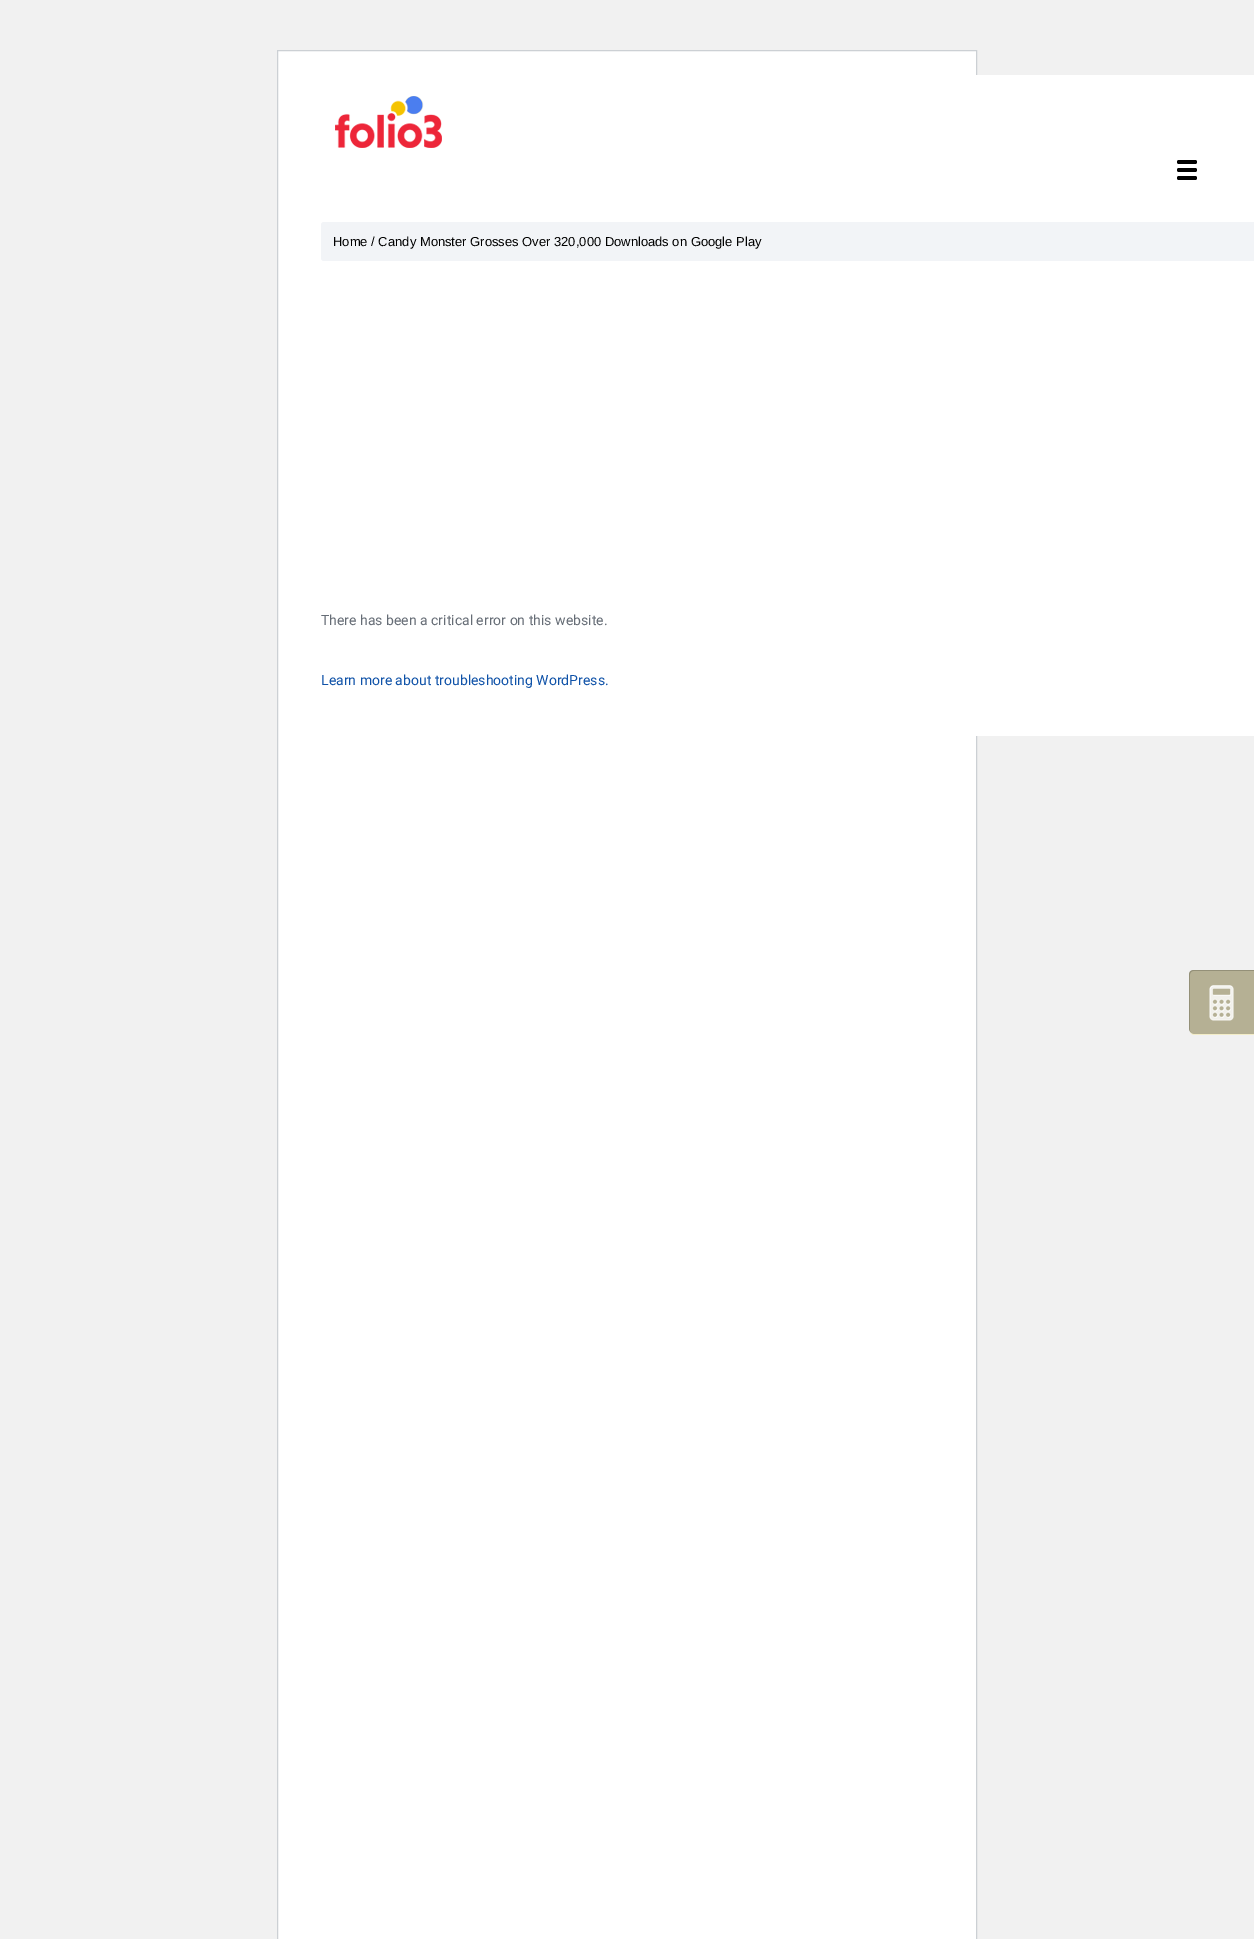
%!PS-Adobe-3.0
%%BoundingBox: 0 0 1254 1939
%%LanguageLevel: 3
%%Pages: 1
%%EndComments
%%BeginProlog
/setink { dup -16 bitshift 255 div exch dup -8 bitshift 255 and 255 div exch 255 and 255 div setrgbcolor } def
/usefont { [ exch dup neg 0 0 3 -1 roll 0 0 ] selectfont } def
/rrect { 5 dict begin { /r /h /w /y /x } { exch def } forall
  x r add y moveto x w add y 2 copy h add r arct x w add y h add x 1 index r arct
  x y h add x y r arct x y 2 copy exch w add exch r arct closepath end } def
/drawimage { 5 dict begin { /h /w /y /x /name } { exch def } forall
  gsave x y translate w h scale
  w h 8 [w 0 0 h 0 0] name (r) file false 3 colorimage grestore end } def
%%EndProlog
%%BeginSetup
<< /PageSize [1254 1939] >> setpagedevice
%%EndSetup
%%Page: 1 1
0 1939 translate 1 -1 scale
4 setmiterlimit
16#F1F1F1 setink
0 0 1254 1939 rectfill
16#FFFFFF setink
277.5 50.5 moveto 976.5 50.5 lineto 976.5 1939.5 lineto 277.5 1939.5 lineto closepath gsave fill grestore
16#CCD0D4 setink
stroke
16#FFFFFF setink
316 75 moveto 1254 75 lineto 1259.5 75 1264 79.5 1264 85 curveto 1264 736 lineto 306 736 lineto 306 85 lineto 306 79.5 310.5 75 316 75 curveto closepath fill
(img1.raw) 335 96 107 52 drawimage
16#000000 setink
1177 160 20 4 2 rrect fill
1177 168 20 4 2 rrect fill
1177 176 20 4 2 rrect fill
16#F2F4F7 setink
321 222 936 39 3 rrect fill
/LiberationSans-Regular 13 usefont
16#000000 setink
333 246 moveto (Home / Candy Monster Grosses Over 320,000 Downloads on Google Play) show
/Roboto-Regular 14 usefont
16#666D76 setink
321 625 moveto (There has been a critical error on this website.) show
16#0F52A8 setink
321 685 moveto (Learn more about troubleshooting WordPress.) show
(img2.raw) 1189 970 65 65 drawimage
showpage
%%EOF
